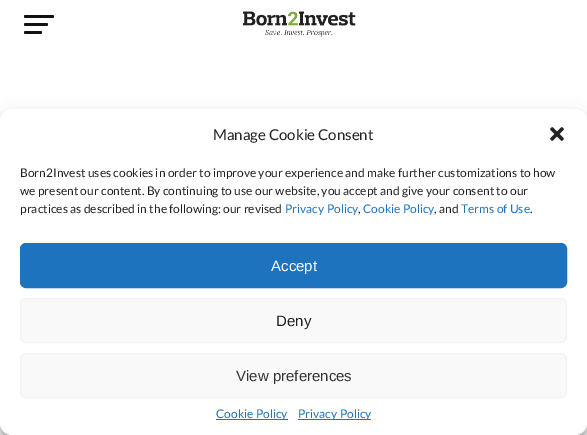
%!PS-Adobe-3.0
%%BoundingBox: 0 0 587 435
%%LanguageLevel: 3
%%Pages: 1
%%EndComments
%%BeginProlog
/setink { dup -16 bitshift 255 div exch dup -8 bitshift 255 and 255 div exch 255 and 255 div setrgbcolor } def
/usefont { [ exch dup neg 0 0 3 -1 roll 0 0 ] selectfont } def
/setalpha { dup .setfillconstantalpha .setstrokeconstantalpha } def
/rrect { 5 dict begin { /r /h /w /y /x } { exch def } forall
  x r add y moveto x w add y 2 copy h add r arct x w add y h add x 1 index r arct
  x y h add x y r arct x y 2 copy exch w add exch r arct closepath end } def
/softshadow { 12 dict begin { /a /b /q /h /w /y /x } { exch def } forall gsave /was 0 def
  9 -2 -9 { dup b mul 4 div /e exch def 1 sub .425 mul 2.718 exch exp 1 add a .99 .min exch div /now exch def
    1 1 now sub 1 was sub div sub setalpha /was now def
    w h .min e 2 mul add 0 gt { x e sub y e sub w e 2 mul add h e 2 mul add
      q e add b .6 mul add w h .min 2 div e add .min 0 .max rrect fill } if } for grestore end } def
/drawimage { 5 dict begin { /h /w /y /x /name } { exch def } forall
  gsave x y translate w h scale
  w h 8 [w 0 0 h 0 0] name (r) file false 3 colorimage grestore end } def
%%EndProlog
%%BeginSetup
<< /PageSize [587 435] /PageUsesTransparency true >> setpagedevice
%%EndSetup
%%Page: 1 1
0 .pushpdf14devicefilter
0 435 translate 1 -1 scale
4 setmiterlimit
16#FFFFFF setink
0 0 587 435 rectfill
16#131212 setink
24 15 30 3 1.5 rrect fill
24 23 24 3 1.5 rrect fill
24 31 18 3 1.5 rrect fill
(img1.raw) 243 11 113 26 drawimage
16#000000 setink
0 115 587 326 12 3 0.23 softshadow
0 119 587 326 12 10 0.19 softshadow
16#FFFFFF setink
0 109 587 326 12 rrect fill
/Lato-Regular 15 usefont
16#222222 setink
213 140 moveto (Manage Cookie Consent) show
(img2.raw) 550 127 14 14 drawimage
/Lato-Regular 12 usefont
[
    [(Born2Invest uses cookies in order to improve your experience and make further customizations to how) 20 177]
    [(we present our content. By continuing to use our website, you accept and give your consent to our) 20 195]
    [(practices as described in the following: our revised) 20 213]
] { aload pop moveto show } forall
16#1E73BE setink
285 213 moveto (Privacy Policy) show
16#222222 setink
358 213 moveto (,) show
16#1E73BE setink
363 213 moveto (Cookie Policy) show
16#222222 setink
434 213 moveto (, and) show
16#1E73BE setink
461 213 moveto (Terms of Use) show
16#222222 setink
530 213 moveto (.) show
16#1E73BE setink
20.5 243.5 546 44 5.5 rrect gsave fill grestore
stroke
/LiberationSans-Regular 15 usefont
16#FFFFFF setink
271 271 moveto (Accept) show
16#F9F9F9 setink
20.5 298.5 546 44 5.5 rrect gsave fill grestore
16#F2F2F2 setink
stroke
16#222222 setink
276 326 moveto (Deny) show
16#F9F9F9 setink
20.5 353.5 546 44 5.5 rrect gsave fill grestore
16#F2F2F2 setink
stroke
16#333333 setink
236 381 moveto (View preferences) show
16#1E73BE setink
216 419 72 1 rectfill
/Lato-Regular 12 usefont
216 418 moveto (Cookie Policy) show
298 419 73 1 rectfill
298 418 moveto (Privacy Policy) show
.poppdf14devicefilter showpage
%%EOF
